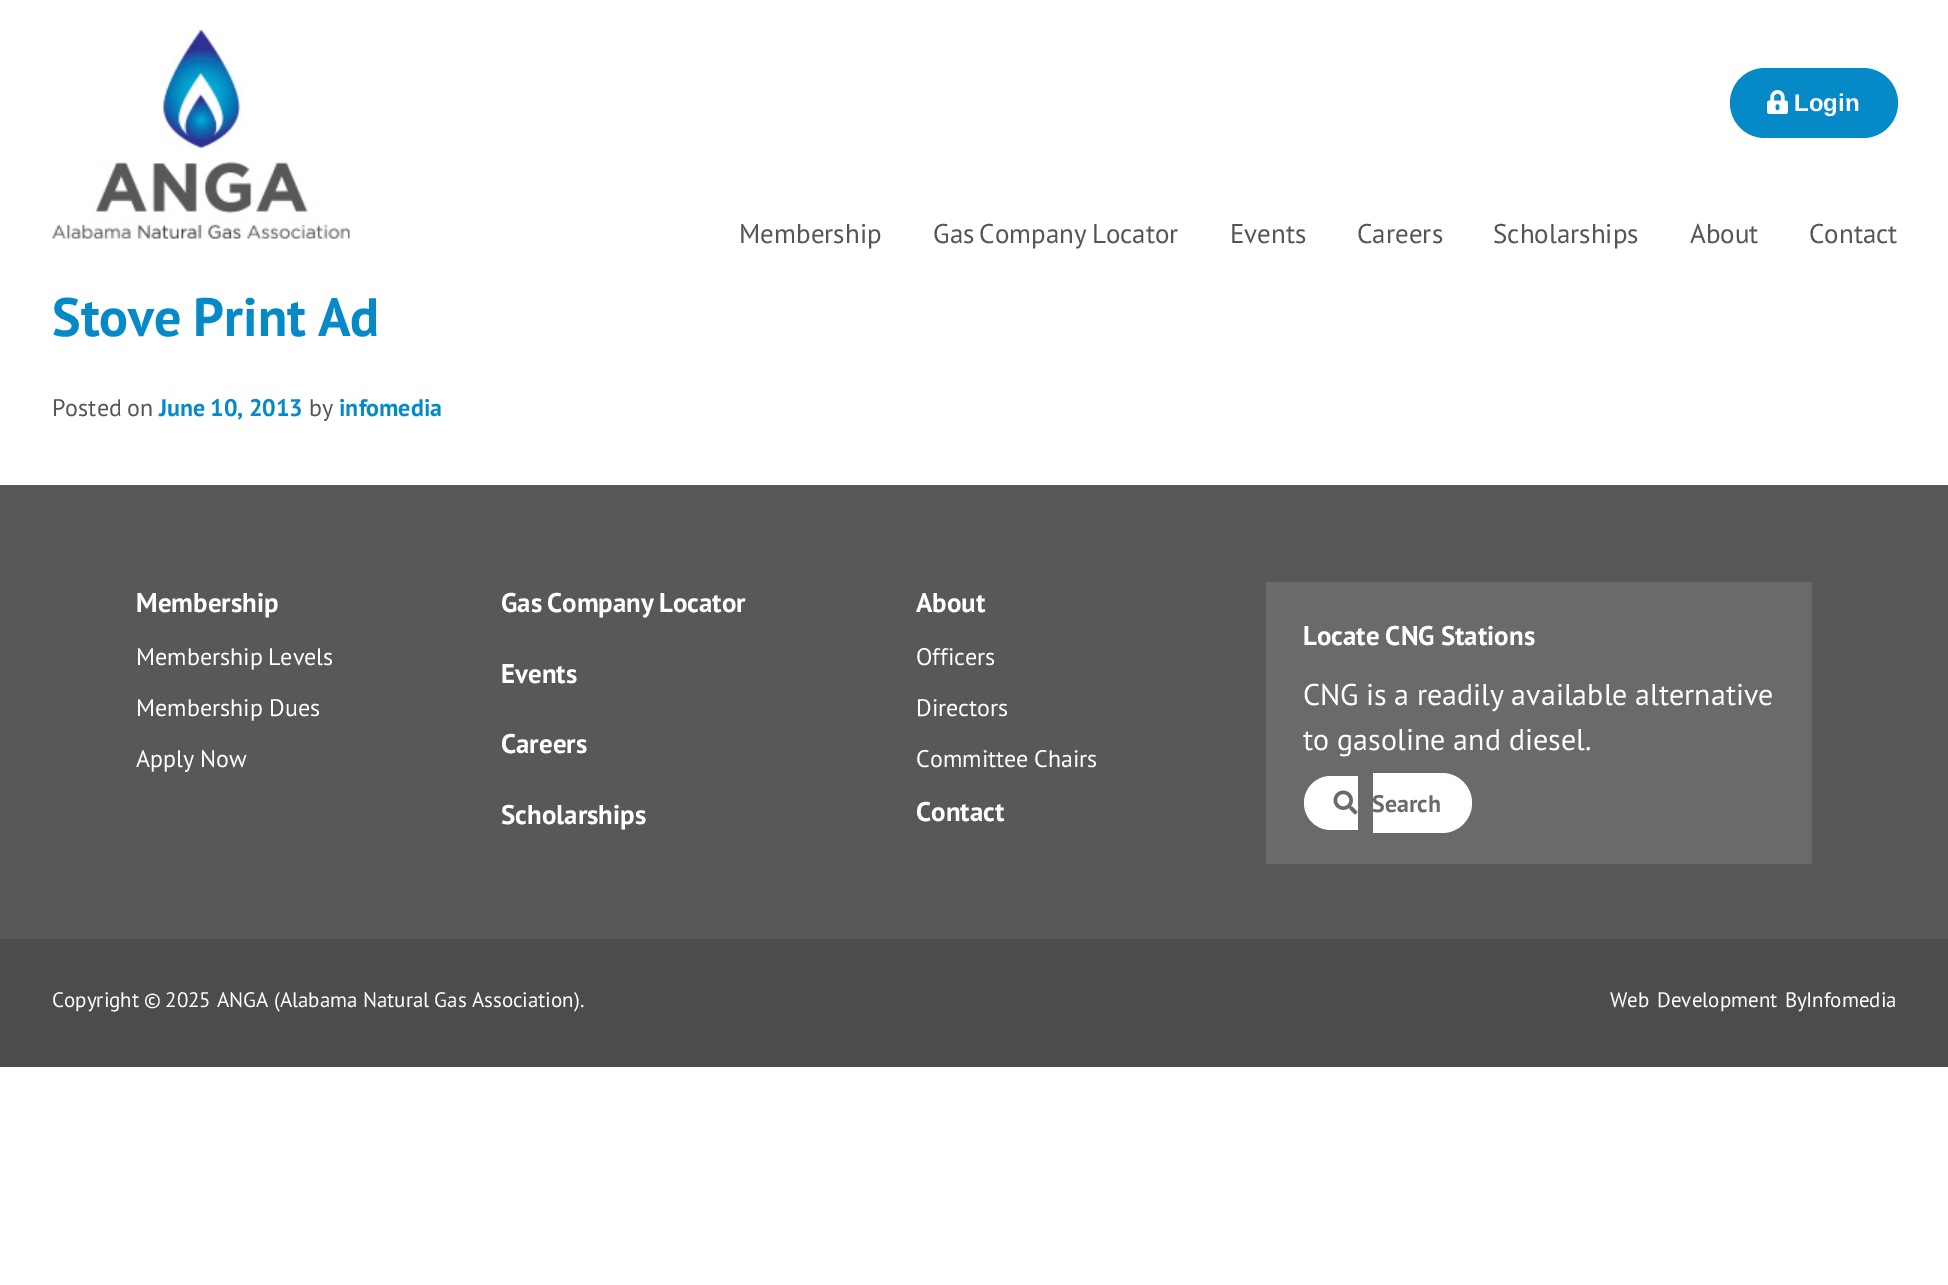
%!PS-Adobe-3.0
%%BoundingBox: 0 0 1948 1285
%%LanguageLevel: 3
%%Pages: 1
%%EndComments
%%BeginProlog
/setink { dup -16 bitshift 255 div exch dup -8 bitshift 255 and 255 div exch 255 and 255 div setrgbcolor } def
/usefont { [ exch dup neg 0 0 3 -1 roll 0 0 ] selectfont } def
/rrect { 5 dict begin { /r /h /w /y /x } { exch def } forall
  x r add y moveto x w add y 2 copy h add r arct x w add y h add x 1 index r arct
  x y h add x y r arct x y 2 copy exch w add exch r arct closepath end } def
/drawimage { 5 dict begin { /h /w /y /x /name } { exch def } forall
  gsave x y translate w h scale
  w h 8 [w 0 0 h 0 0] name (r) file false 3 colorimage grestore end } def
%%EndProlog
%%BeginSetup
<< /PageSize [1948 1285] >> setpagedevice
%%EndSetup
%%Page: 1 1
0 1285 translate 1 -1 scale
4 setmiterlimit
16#FFFFFF setink
0 0 1948 1285 rectfill
(img1.raw) 52 30 298 209 drawimage
16#0589C7 setink
1730 68 168 70 35 rrect fill
(img2.raw) 1767 90 21 24 drawimage
/LiberationSans-Bold 24 usefont
16#FFFFFF setink
1794 111 moveto (Login) show
/PTSans-Regular 27 usefont
16#555555 setink
739 243 moveto (Membership) show
933 243 moveto -2 0 32 (Gas Company Locator) widthshow
[
    [(Events) 1230 243]
    [(Careers) 1357 243]
    [(Scholarships) 1493 243]
    [(About) 1690 243]
    [(Contact) 1809 243]
] { aload pop moveto show } forall
/PTSans-Bold 54 usefont
16#0589C7 setink
52 336 moveto -2 0 32 (Stove Print Ad) widthshow
/PTSans-Regular 24 usefont
16#555555 setink
52 416 moveto -1 0 32 (Posted on) widthshow
/PTSans-Bold 24 usefont
16#0589C7 setink
159 416 moveto -1 0 32 (June 10, 2013) widthshow
/PTSans-Regular 24 usefont
16#555555 setink
309 416 moveto (by) show
/PTSans-Bold 24 usefont
16#0589C7 setink
339 416 moveto (infomedia) show
16#58585A setink
0 485 1948 454 rectfill
/PTSans-Bold 27 usefont
16#FFFFFF setink
136 612 moveto (Membership) show
/PTSans-Regular 24 usefont
136 665 moveto -1 0 32 (Membership Levels) widthshow
136 716 moveto (Membership Dues) show
136 767 moveto -1 0 32 (Apply Now) widthshow
/PTSans-Bold 27 usefont
501 612 moveto -2 0 32 (Gas Company Locator) widthshow
[
    [(Events) 501 683]
    [(Careers) 501 753]
    [(Scholarships) 501 824]
    [(About) 916 612]
] { aload pop moveto show } forall
/PTSans-Regular 24 usefont
916 665 moveto (Officers) show
916 716 moveto (Directors) show
916 767 moveto -1 0 32 (Committee Chairs) widthshow
/PTSans-Bold 27 usefont
916 821 moveto (Contact) show
16#6A6A6C setink
1266 582 546 282 rectfill
16#FFFFFF setink
1303 645 moveto -1 0 32 (Locate CNG Stations) widthshow
/PTSans-Regular 30 usefont
1303 705 moveto -0.5 0 32 (CNG is a readily available alternative) widthshow
1303 750 moveto (to gasoline and diesel.) show
1331 776 moveto 1358 776 lineto 1358 830 lineto 1331 830 lineto 1316 830 1304 818 1304 803 curveto 1304 788 1316 776 1331 776 curveto closepath fill
1373 773 moveto 1442 773 lineto 1458.5 773 1472 786.5 1472 803 curveto 1472 819.5 1458.5 833 1442 833 curveto 1373 833 lineto closepath fill
(img3.raw) 1333 790 25 25 drawimage
/PTSans-Bold 24 usefont
16#6A6A6C setink
1372 812 moveto (Search) show
16#4C4C4E setink
0 939 1948 128 rectfill
/PTSans-Regular 21 usefont
16#FFFFFF setink
52 1007 moveto -1 0 32 (Copyright © 2025) widthshow
217 1007 moveto -0.5 0 32 (ANGA \(Alabama Natural Gas Association\).) widthshow
1610 1007 moveto 2 0 32 (Web Development By) widthshow
1806 1007 moveto (Infomedia) show
showpage
%%EOF
